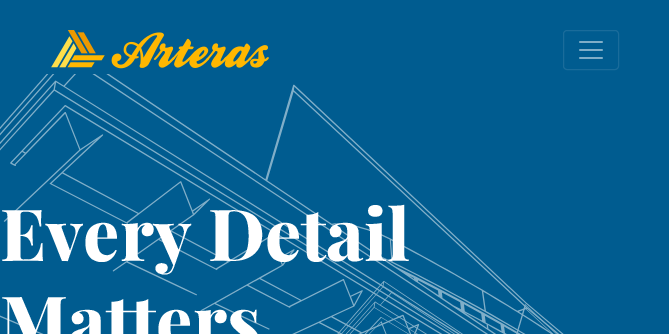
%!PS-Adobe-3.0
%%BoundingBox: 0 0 669 334
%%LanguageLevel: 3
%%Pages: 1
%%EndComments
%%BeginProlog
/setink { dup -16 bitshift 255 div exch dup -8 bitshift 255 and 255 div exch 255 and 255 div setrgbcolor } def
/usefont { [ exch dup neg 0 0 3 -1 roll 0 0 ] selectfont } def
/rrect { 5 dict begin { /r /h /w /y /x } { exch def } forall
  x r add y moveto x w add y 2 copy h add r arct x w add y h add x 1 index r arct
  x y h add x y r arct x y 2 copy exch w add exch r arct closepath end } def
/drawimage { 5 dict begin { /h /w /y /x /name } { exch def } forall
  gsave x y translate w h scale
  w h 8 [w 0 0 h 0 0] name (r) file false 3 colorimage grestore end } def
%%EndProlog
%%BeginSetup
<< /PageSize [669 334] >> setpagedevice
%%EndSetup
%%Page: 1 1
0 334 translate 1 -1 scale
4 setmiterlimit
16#005C90 setink
0 0 669 334 rectfill
(img1.raw) 51 30 218 39 drawimage
16#1A6C9B setink
563.5 30.5 55 39 3.5 rrect stroke
(img2.raw) 579 41 24 18 drawimage
(img3.raw) 0 74 564 260 drawimage
/PlayfairDisplay-ExtraBold 72 usefont
16#FFFFFF setink
0 261 moveto (Every Detail) show
0 348 moveto (Matters) show
showpage
%%EOF
